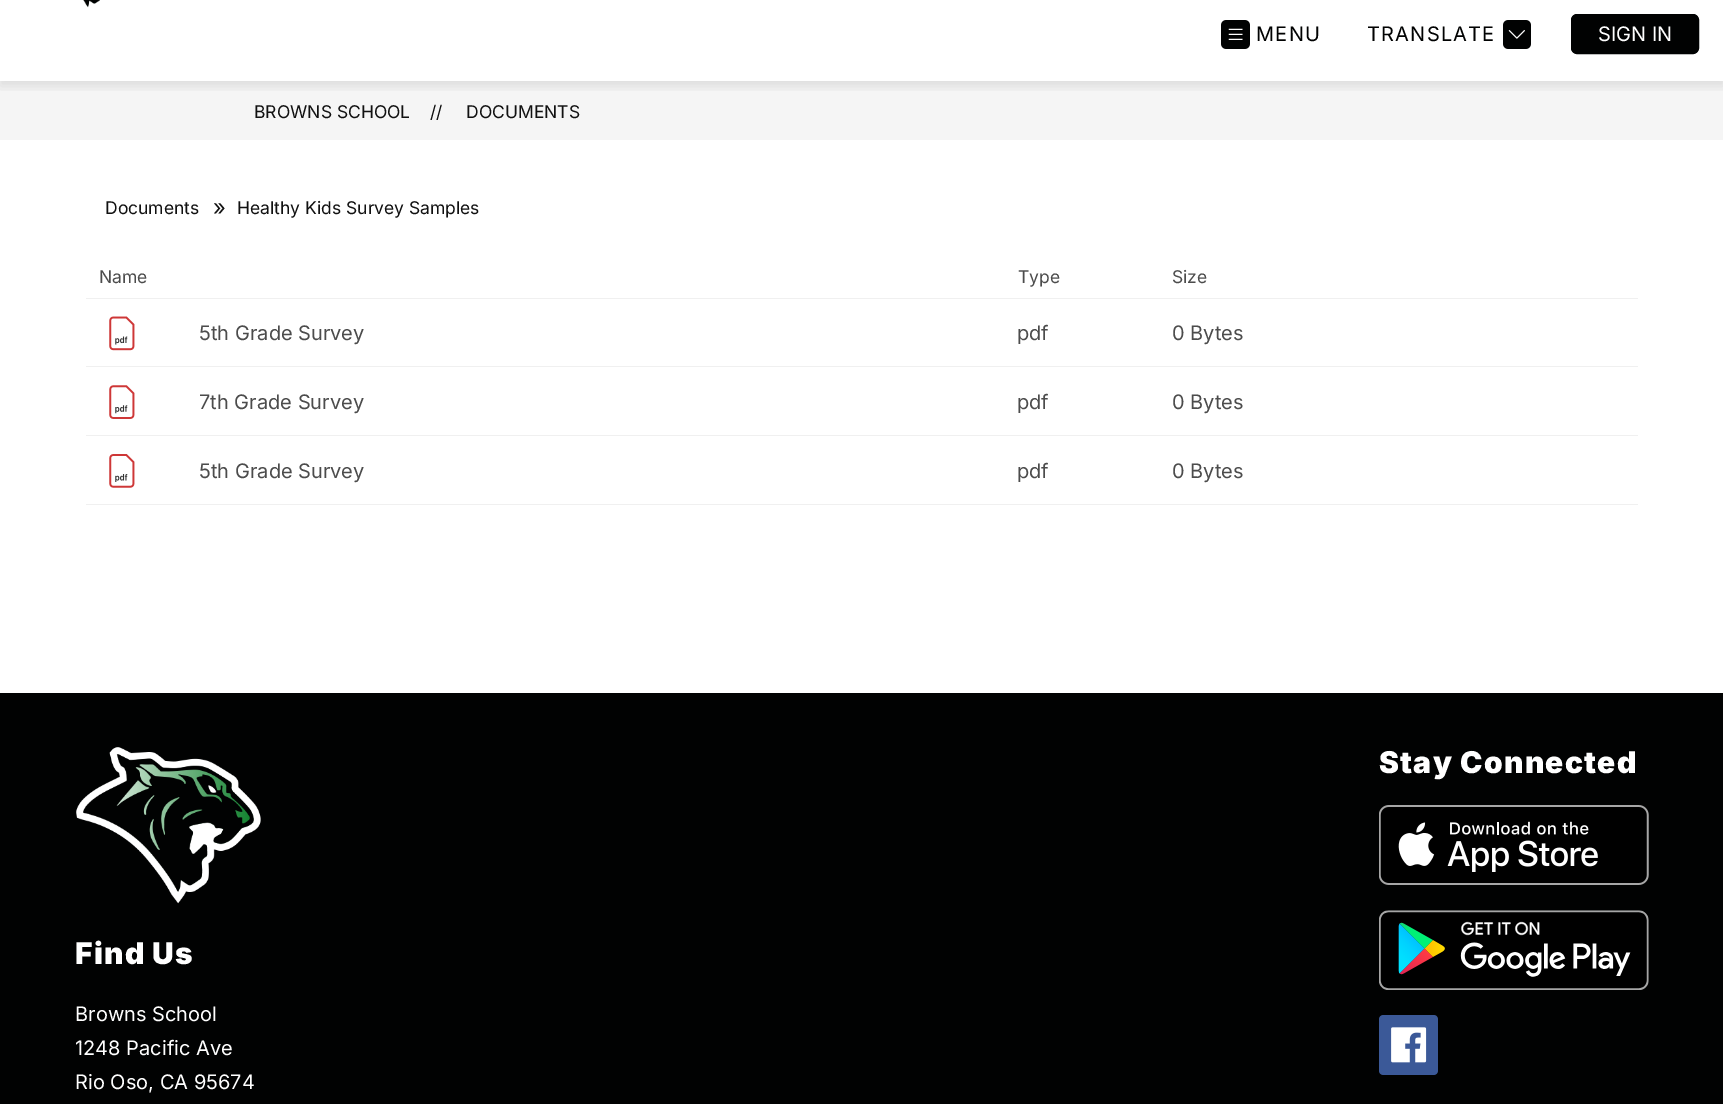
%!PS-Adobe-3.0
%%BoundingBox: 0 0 1723 1104
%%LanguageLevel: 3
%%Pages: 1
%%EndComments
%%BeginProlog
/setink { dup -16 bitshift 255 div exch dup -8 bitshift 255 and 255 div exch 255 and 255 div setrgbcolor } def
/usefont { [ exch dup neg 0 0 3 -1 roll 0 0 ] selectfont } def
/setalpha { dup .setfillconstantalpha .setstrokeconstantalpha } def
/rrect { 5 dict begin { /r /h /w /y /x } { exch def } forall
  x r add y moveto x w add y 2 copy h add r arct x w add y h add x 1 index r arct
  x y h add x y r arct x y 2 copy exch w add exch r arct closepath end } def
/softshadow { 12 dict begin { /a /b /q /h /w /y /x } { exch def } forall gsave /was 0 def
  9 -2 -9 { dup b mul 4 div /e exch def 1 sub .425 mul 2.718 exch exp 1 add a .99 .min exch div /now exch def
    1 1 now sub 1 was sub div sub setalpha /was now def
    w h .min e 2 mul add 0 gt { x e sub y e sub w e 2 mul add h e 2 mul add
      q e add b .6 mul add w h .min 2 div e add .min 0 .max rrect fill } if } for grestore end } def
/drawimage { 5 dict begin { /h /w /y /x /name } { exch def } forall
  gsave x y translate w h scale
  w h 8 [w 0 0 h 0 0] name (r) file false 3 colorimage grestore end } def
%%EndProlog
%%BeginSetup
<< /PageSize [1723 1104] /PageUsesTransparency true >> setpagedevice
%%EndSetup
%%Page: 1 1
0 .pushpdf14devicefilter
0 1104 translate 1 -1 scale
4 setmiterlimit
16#FFFFFF setink
0 0 1723 1104 rectfill
16#F5F5F5 setink
0 81 1723 59 rectfill
gsave
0 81 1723 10 rectclip
16#000000 setink
0 -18 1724 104 0 6 0.1 softshadow
grestore
(img1.raw) 83 0 17 8 drawimage
(img2.raw) 1221 20 29 29 drawimage
/Inter-Regular 20 usefont
16#010202 setink
1256 41 moveto 1.25 0 (MENU) ashow
1367 41 moveto 1.25 0 (TRANSLATE) ashow
(img3.raw) 1503 20 28 29 drawimage
1571.5 14.5 127 39 5.5 rrect gsave fill grestore
stroke
16#FFFFFF setink
1598 41 moveto (SIGN IN) show
/Inter-Regular 17.5 usefont
16#111111 setink
[
    [(BROWNS SCHOOL) 254 118]
    [(//) 430 118]
    [(DOCUMENTS) 466 118]
    [(Documents) 105 214]
] { aload pop moveto show } forall
/Inter-Regular 22 usefont
213 215 moveto (») show
/Inter-Regular 17.5 usefont
237 214 moveto (Healthy Kids Survey Samples) show
16#F0F0F0 setink
86 298 1552 1 rectfill
16#4C4C4C setink
[
    [(Name) 99 283]
    [(Type) 1018 283]
    [(Size) 1172 283]
] { aload pop moveto show } forall
16#F0F0F0 setink
86 366 1552 1 rectfill
(img4.raw) 109 316 26 35 drawimage
/Inter-Regular 20 usefont
16#4C4C4C setink
[
    [(5th Grade Survey) 199 340]
    [(pdf) 1017 340]
    [(0 Bytes) 1172 340]
] { aload pop moveto show } forall
16#F0F0F0 setink
86 435 1552 1 rectfill
(img5.raw) 109 385 26 34 drawimage
16#4C4C4C setink
[
    [(7th Grade Survey) 199 409]
    [(pdf) 1017 409]
    [(0 Bytes) 1172 409]
] { aload pop moveto show } forall
16#F0F0F0 setink
86 504 1552 1 rectfill
(img6.raw) 109 454 26 34 drawimage
16#4C4C4C setink
[
    [(5th Grade Survey) 199 478]
    [(pdf) 1017 478]
    [(0 Bytes) 1172 478]
] { aload pop moveto show } forall
16#010202 setink
0 693 1723 411 rectfill
/Inter-Black 30 usefont
16#FFFFFF setink
1379 773 moveto 1.25 0 (Stay Connected) ashow
(img7.raw) 1379 805 270 80 drawimage
(img8.raw) 1379 910 270 80 drawimage
(img9.raw) 1379 1015 59 60 drawimage
(img10.raw) 76 747 185 157 drawimage
75 964 moveto 1.25 0 (Find Us) ashow
/Inter-Regular 20 usefont
[
    [(Browns School) 75 1021]
    [(1248 Pacific Ave) 75 1055]
    [(Rio Oso, CA 95674) 75 1089]
] { aload pop moveto show } forall
.poppdf14devicefilter showpage
%%EOF
